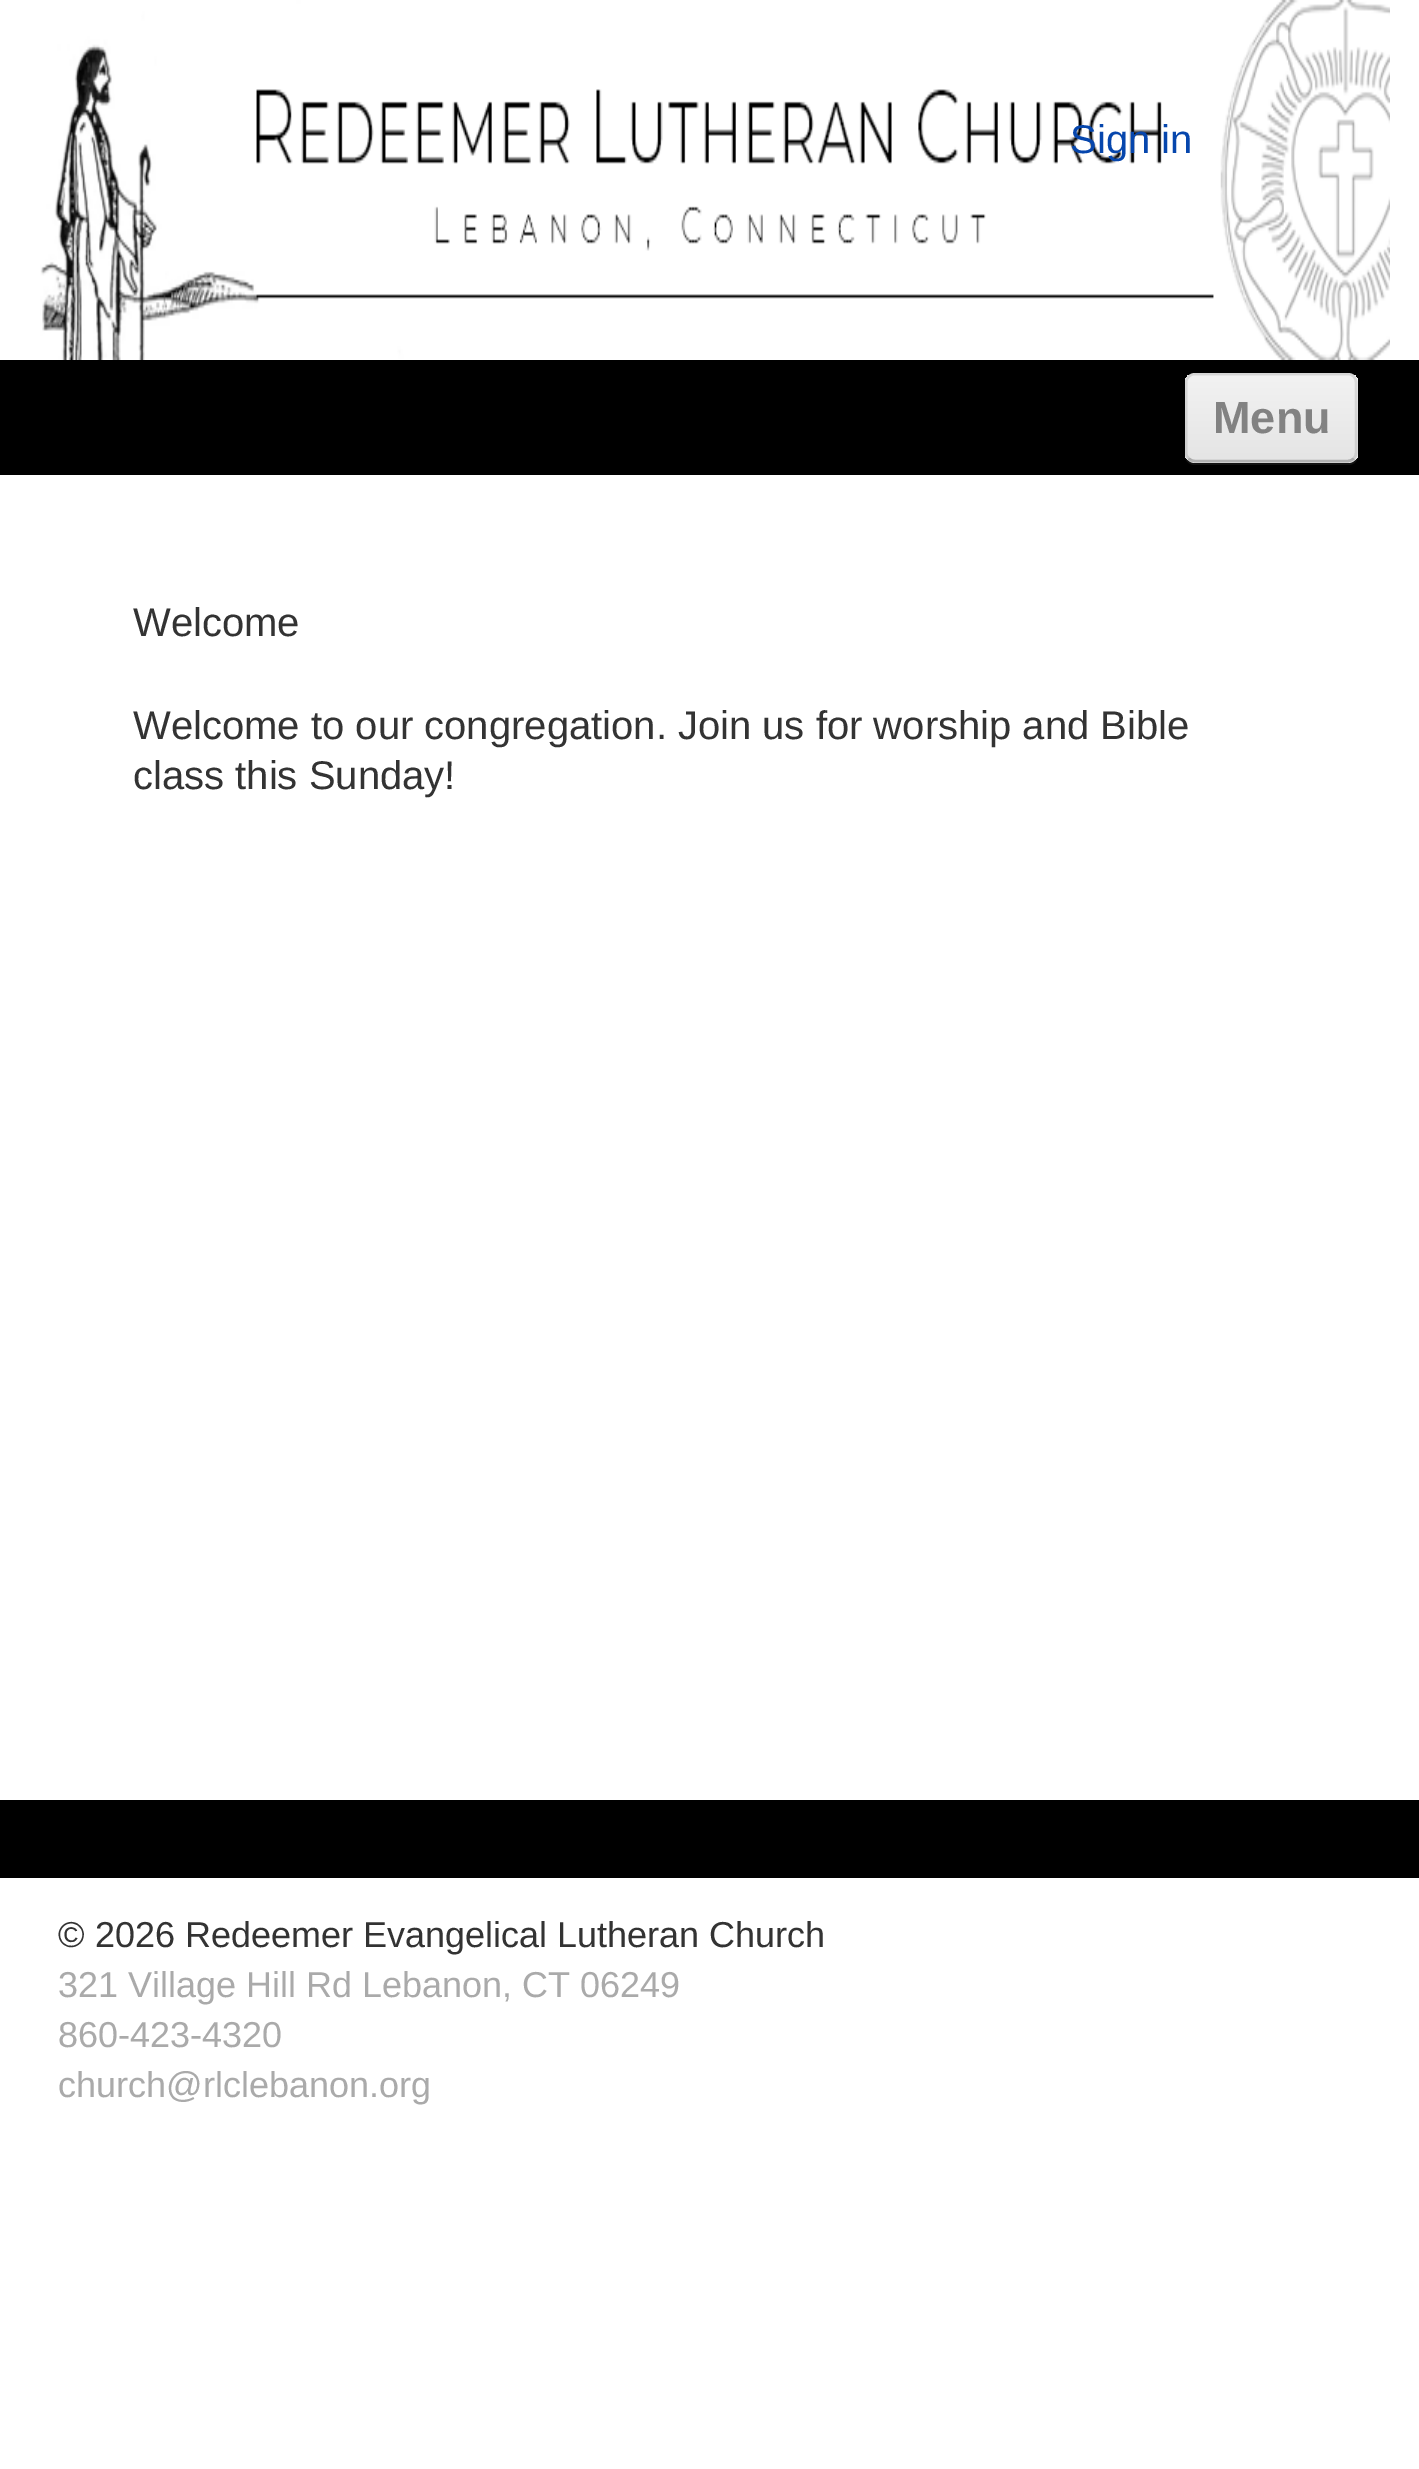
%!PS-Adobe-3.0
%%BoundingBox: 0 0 1419 2469
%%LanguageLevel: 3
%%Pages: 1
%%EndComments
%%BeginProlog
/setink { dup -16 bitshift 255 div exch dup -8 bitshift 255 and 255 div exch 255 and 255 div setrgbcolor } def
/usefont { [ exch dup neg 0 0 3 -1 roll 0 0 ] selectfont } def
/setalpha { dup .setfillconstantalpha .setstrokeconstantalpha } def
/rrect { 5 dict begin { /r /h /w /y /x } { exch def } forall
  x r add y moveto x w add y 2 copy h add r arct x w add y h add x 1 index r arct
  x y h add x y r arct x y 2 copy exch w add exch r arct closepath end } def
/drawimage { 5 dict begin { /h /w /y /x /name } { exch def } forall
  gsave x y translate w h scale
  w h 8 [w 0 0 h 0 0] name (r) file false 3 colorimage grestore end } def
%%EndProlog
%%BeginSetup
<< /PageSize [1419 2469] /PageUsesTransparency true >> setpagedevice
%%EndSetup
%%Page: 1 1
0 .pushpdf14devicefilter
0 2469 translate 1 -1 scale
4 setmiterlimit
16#FFFFFF setink
0 0 1419 2469 rectfill
(img1.raw) 40 0 1350 360 drawimage
/LiberationSans-Regular 40 usefont
16#0646AD setink
1070 153 moveto (Sign in) show
16#000000 setink
0 360 1419 115 rectfill
16#131313 setink
1185 452 moveto 1185 455 lineto 1185 461 1189 465 1195 465 curveto 1348 465 lineto 1354 465 1358 461 1358 455 curveto 1358 385 lineto 1357 382 lineto 1358 452 lineto 1358 458 1353 462 1348 462 curveto 1195 462 lineto 1189 462 1185 458 1185 452 curveto closepath fill
16#EDEDED setink
1185 373 173 90 10 rrect fill
gsave
1185 373 173 90 10 rrect clip newpath
gsave 1185 375 moveto 1358 375 lineto 1358 460 lineto 1185 460 lineto closepath clip newpath
<< /ShadingType 2 /ColorSpace /DeviceRGB /Coords [1271 375 1271 460] /Extend [true true] /Function << /FunctionType 2 /Domain [0 1] /C0 [0.949 0.949 0.949] /C1 [0.898 0.898 0.898] /N 1 >> >> shfill grestore
grestore
0.25 setalpha
16#000000 setink
2.5 setlinewidth
1353.5 458.5 moveto 1352 460.5 1350 461 1347.5 461 curveto 1195 461 lineto 1192.5 461 1190.5 460.5 1189 458.5 curveto stroke
0.1 setalpha
1189 458.5 moveto 1187 457 1186 455 1186 452.5 curveto 1186 382.5 lineto 1186 380 1187 378 1189 376.5 curveto 1190.5 374.5 1192.5 374 1195 374 curveto 1347.5 374 lineto 1350 374 1352 374.5 1353.5 376.5 curveto 1355.5 378 1356 380 1356 382.5 curveto 1356 452.5 lineto 1356 455 1355.5 457 1353.5 458.5 curveto stroke
/LiberationSans-Bold 45 usefont
1 setalpha
16#828282 setink
1213 433 moveto (Menu) show
/LiberationSans-Regular 40 usefont
16#333333 setink
[
    [(Welcome) 133 636]
    [(Welcome to our congregation. Join us for worship and Bible) 133 739]
    [(class this Sunday!) 133 789]
] { aload pop moveto show } forall
16#000000 setink
0 1800 1419 78 rectfill
/LiberationSans-Regular 36 usefont
16#333333 setink
58 1947 moveto (© 2026 Redeemer Evangelical Lutheran Church) show
16#AAAAAA setink
[
    [(321 Village Hill Rd Lebanon, CT) 58 1997]
    [(06249) 580 1997]
    [(860-423-4320) 58 2047]
    [(church@rlclebanon.org) 58 2097]
] { aload pop moveto show } forall
.poppdf14devicefilter showpage
%%EOF
